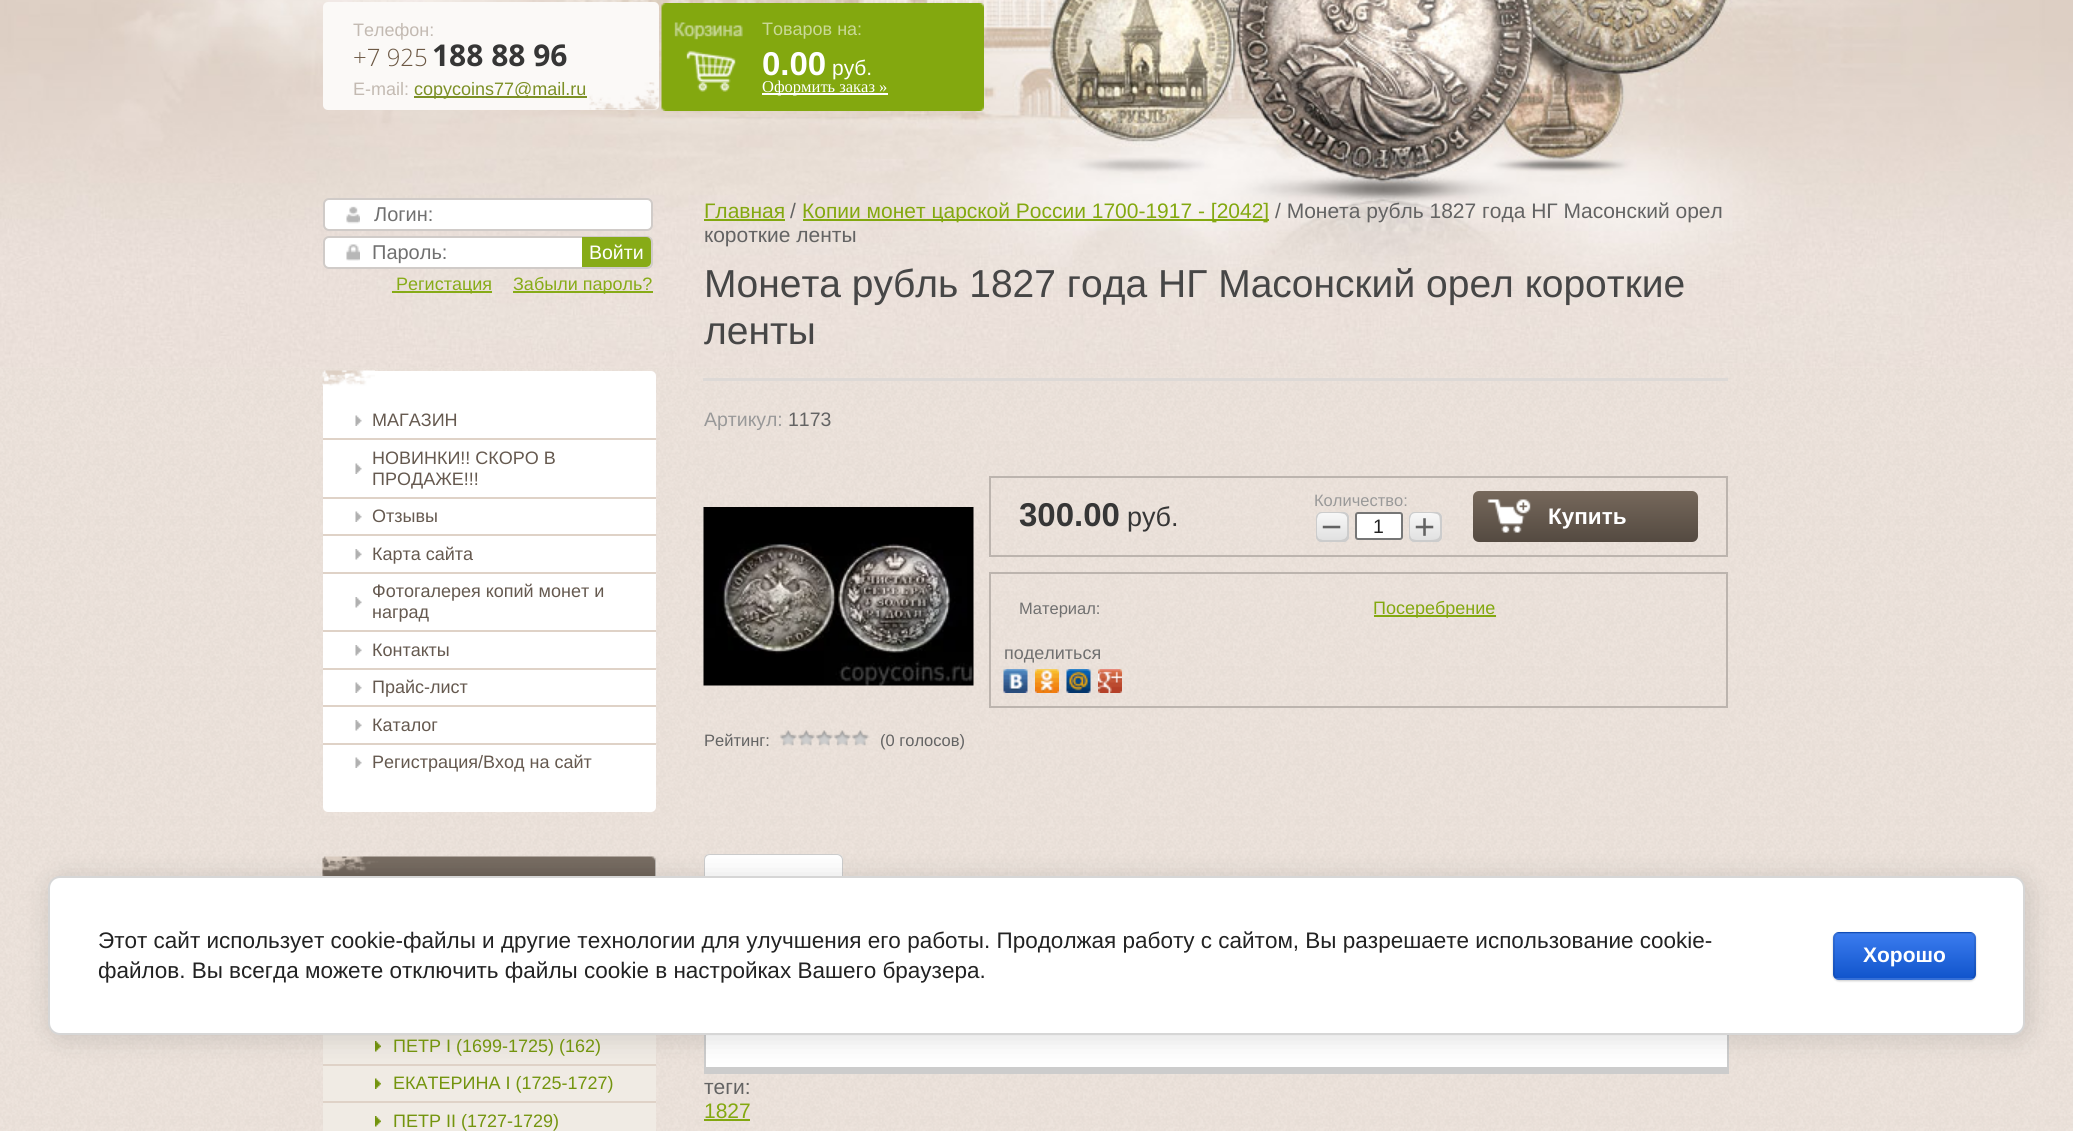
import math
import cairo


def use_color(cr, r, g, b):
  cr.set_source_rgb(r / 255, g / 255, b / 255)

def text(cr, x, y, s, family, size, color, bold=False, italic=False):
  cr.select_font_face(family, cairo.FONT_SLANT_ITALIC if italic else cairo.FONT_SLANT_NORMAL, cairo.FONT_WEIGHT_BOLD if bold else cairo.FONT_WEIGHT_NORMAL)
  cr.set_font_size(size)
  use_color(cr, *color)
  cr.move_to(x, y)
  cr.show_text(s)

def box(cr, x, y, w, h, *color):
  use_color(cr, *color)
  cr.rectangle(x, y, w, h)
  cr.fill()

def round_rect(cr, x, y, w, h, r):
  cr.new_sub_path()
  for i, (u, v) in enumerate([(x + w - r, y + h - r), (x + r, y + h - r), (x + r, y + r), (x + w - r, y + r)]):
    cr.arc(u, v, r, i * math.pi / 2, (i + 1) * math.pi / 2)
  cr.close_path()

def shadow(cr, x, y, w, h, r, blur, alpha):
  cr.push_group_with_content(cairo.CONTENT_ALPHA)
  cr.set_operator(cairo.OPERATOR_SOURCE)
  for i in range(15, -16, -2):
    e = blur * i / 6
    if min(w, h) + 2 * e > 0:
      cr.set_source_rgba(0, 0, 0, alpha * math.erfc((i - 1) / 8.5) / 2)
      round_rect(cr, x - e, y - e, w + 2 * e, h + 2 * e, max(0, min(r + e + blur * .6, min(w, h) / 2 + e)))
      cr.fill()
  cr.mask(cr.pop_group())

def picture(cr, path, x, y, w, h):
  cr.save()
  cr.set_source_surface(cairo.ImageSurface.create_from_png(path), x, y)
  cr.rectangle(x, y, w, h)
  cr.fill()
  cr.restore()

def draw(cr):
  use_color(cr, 255, 255, 255)
  cr.paint()
  picture(cr, "img_01.png", 0, 367, 2073, 764)
  picture(cr, "img_20.png", 0, 367, 2073, 1)
  picture(cr, "img_02.png", 0, 0, 2073, 368)
  use_color(cr, 251, 249, 247)
  round_rect(cr, 323, 2, 336, 108, 5)
  cr.fill()
  box(cr, 414, 96, 173, 2, 124, 144, 38)
  picture(cr, "img_03.png", 589, 82, 70, 28)
  picture(cr, "img_04.png", 661, 3, 323, 108)
  box(cr, 762, 93, 126, 2, 255, 255, 255)
  round_rect(cr, 324, 199, 328, 31, 5)
  cr.fill_preserve()
  use_color(cr, 208, 203, 200)
  cr.stroke()
  picture(cr, "img_05.png", 346, 206, 14, 18)
  use_color(cr, 255, 255, 255)
  round_rect(cr, 324, 237, 328, 31, 5)
  cr.fill_preserve()
  use_color(cr, 208, 203, 200)
  cr.stroke()
  picture(cr, "img_06.png", 346, 244, 14, 17)
  use_color(cr, 135, 171, 23)
  cr.new_path()
  cr.move_to(582, 237)
  cr.line_to(646, 237)
  cr.curve_to(649, 237, 651, 239, 651, 242)
  cr.line_to(651, 262)
  cr.curve_to(651, 265, 649, 267, 646, 267)
  cr.line_to(582, 267)
  cr.close_path()
  cr.fill()
  box(cr, 392, 291, 100, 2, 135, 171, 23)
  box(cr, 513, 291, 140, 2, 135, 171, 23)
  use_color(cr, 255, 255, 255)
  round_rect(cr, 323, 371, 333, 441, 5)
  cr.fill()
  picture(cr, "img_07.png", 322, 370, 53, 16)
  picture(cr, "img_08.png", 355, 415, 7, 11)
  picture(cr, "img_08.png", 355, 463, 7, 11)
  box(cr, 323, 438, 333, 2, 223, 210, 199)
  picture(cr, "img_08.png", 355, 511, 7, 11)
  box(cr, 323, 497, 333, 2, 223, 210, 199)
  picture(cr, "img_09.png", 355, 549, 7, 11)
  box(cr, 323, 534, 333, 2, 223, 210, 199)
  picture(cr, "img_09.png", 355, 597, 7, 11)
  box(cr, 323, 572, 333, 2, 223, 210, 199)
  picture(cr, "img_09.png", 355, 645, 7, 11)
  box(cr, 323, 630, 333, 2, 223, 210, 199)
  picture(cr, "img_08.png", 355, 682, 7, 11)
  box(cr, 323, 668, 333, 2, 223, 210, 199)
  picture(cr, "img_09.png", 355, 720, 7, 11)
  box(cr, 323, 705, 333, 2, 223, 210, 199)
  picture(cr, "img_08.png", 355, 757, 7, 11)
  box(cr, 323, 743, 333, 2, 223, 210, 199)
  use_color(cr, 255, 255, 255)
  round_rect(cr, 323, 857, 333, 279, 5)
  cr.fill()
  picture(cr, "img_10.png", 322, 856, 334, 20)
  box(cr, 323, 1035, 333, 96, 240, 235, 228)
  picture(cr, "img_11.png", 375, 1041, 6, 11)
  picture(cr, "img_12.png", 375, 1078, 6, 11)
  box(cr, 323, 1064, 333, 2, 223, 210, 199)
  picture(cr, "img_11.png", 375, 1116, 6, 11)
  box(cr, 323, 1101, 333, 2, 223, 210, 199)
  box(cr, 704, 219, 81, 2, 131, 168, 15)
  box(cr, 803, 219, 466, 2, 131, 168, 15)
  box(cr, 703, 378, 1025, 3, 221, 217, 214)
  cr.rectangle(990, 477, 737, 79)
  use_color(cr, 188, 180, 174)
  cr.stroke()
  gradient = cairo.LinearGradient(1332, 512, 1332, 542)
  gradient.add_color_stop_rgba(0, 0.973, 0.973, 0.973, 1)
  gradient.add_color_stop_rgba(1, 0.875, 0.875, 0.875, 1)
  cr.set_source(gradient)
  round_rect(cr, 1316, 512, 33, 30, 6)
  cr.fill()
  use_color(cr, 204, 204, 204)
  cr.new_path()
  cr.move_to(1317.5, 514.5)
  cr.curve_to(1316.5, 515.5, 1316, 516.5, 1316, 518)
  cr.line_to(1316, 536)
  cr.curve_to(1316, 539.5, 1318.5, 542, 1322, 542)
  cr.line_to(1343, 542)
  cr.curve_to(1346, 542, 1348, 540, 1349, 537.5)
  cr.curve_to(1348, 538.5, 1347, 539, 1346, 539.5)
  cr.curve_to(1341, 540.5, 1333.5, 540, 1328.5, 540)
  cr.curve_to(1326, 540, 1323, 540.5, 1321, 539.5)
  cr.line_to(1319, 539)
  cr.curve_to(1317.5, 537.5, 1317, 535.5, 1317, 534)
  cr.line_to(1317, 517)
  cr.close_path()
  cr.fill()
  cr.new_path()
  cr.move_to(1320, 513)
  cr.curve_to(1325, 513, 1342, 512, 1345, 514.5)
  cr.curve_to(1346, 515.5, 1346.5, 516, 1347, 517.5)
  cr.curve_to(1347, 519, 1347.5, 536, 1347, 538)
  cr.curve_to(1346.5, 539.5, 1346, 541, 1344.5, 542)
  cr.curve_to(1347, 541, 1349, 539, 1349, 536)
  cr.line_to(1349, 518)
  cr.curve_to(1349, 514.5, 1346.5, 512, 1343, 512)
  cr.line_to(1322, 512)
  cr.curve_to(1320.5, 512, 1319.5, 512.5, 1318.5, 513)
  cr.close_path()
  cr.fill()
  cr.new_path()
  cr.move_to(1317, 539.5)
  cr.curve_to(1318, 541, 1320, 542, 1322, 542)
  cr.line_to(1343, 542)
  cr.curve_to(1346.5, 542, 1349, 539.5, 1349, 536)
  cr.line_to(1349, 518)
  cr.curve_to(1349, 516, 1348, 514, 1346.5, 513)
  cr.line_to(1347, 516.5)
  cr.curve_to(1347.5, 519, 1347.5, 534, 1347, 535.5)
  cr.curve_to(1346.5, 537, 1346, 537.5, 1345, 538.5)
  cr.curve_to(1344, 539.5, 1342.5, 539.5, 1341, 540)
  cr.line_to(1323, 540)
  cr.curve_to(1321, 540, 1319, 540.5, 1317, 539.5)
  cr.close_path()
  cr.fill()
  cr.new_path()
  cr.move_to(1323, 513)
  cr.line_to(1340, 513)
  cr.curve_to(1344, 513, 1346.5, 513.5, 1348, 515)
  cr.curve_to(1347, 513, 1345, 512, 1343, 512)
  cr.line_to(1322, 512)
  cr.curve_to(1318.5, 512, 1316, 514.5, 1316, 518)
  cr.line_to(1316, 536)
  cr.curve_to(1316, 538, 1317, 539.5, 1318, 540.5)
  cr.curve_to(1317, 539, 1317, 537.5, 1317, 536)
  cr.line_to(1317, 519)
  cr.line_to(1318, 515.5)
  cr.curve_to(1319, 513.5, 1321, 513, 1323, 513)
  cr.close_path()
  cr.fill()
  use_color(cr, 255, 255, 255)
  round_rect(cr, 1356, 513, 46, 26, 2)
  cr.fill_preserve()
  use_color(cr, 118, 118, 118)
  cr.stroke()
  gradient = cairo.LinearGradient(1425, 512, 1425, 542)
  gradient.add_color_stop_rgba(0, 0.973, 0.973, 0.973, 1)
  gradient.add_color_stop_rgba(1, 0.875, 0.875, 0.875, 1)
  cr.set_source(gradient)
  round_rect(cr, 1409, 512, 33, 30, 6)
  cr.fill()
  use_color(cr, 204, 204, 204)
  cr.new_path()
  cr.move_to(1410.5, 514.5)
  cr.curve_to(1409.5, 515.5, 1409, 516.5, 1409, 518)
  cr.line_to(1409, 536)
  cr.curve_to(1409, 539.5, 1411.5, 542, 1415, 542)
  cr.line_to(1436, 542)
  cr.curve_to(1438.5, 542, 1441, 540.5, 1441.5, 538)
  cr.curve_to(1439, 541, 1428.5, 540, 1425, 540)
  cr.curve_to(1422, 540, 1416.5, 540.5, 1414, 539.5)
  cr.line_to(1412, 539)
  cr.curve_to(1410.5, 537.5, 1410, 535.5, 1410, 534)
  cr.line_to(1410, 517)
  cr.close_path()
  cr.fill()
  cr.new_path()
  cr.move_to(1413, 513)
  cr.curve_to(1418, 513, 1434, 512, 1438, 514.5)
  cr.curve_to(1439, 515.5, 1439.5, 516, 1439.5, 517.5)
  cr.curve_to(1440, 519, 1440.5, 536, 1440, 538)
  cr.curve_to(1439.5, 540, 1438.5, 541, 1437, 542)
  cr.curve_to(1440, 541.5, 1442, 539, 1442, 536)
  cr.line_to(1442, 518)
  cr.curve_to(1442, 514.5, 1439.5, 512, 1436, 512)
  cr.line_to(1415, 512)
  cr.curve_to(1413.5, 512, 1412.5, 512.5, 1411.5, 513)
  cr.close_path()
  cr.fill()
  cr.new_path()
  cr.move_to(1410, 539.5)
  cr.curve_to(1411, 541, 1413, 542, 1415, 542)
  cr.line_to(1436, 542)
  cr.curve_to(1439.5, 542, 1442, 539.5, 1442, 536)
  cr.line_to(1442, 518)
  cr.curve_to(1442, 516, 1441, 514, 1439, 513)
  cr.curve_to(1440.5, 514.5, 1440, 517.5, 1440, 521)
  cr.line_to(1440, 529)
  cr.curve_to(1440.5, 536, 1440.5, 540, 1430, 540)
  cr.line_to(1413, 540)
  cr.curve_to(1412, 540, 1411, 540, 1410, 539.5)
  cr.close_path()
  cr.fill()
  cr.new_path()
  cr.move_to(1416, 513)
  cr.line_to(1434, 513)
  cr.curve_to(1437, 513, 1439.5, 513.5, 1440.5, 514.5)
  cr.curve_to(1439.5, 513, 1438, 512, 1436, 512)
  cr.line_to(1415, 512)
  cr.curve_to(1411.5, 512, 1409, 514.5, 1409, 518)
  cr.line_to(1409, 536)
  cr.curve_to(1409, 538, 1410, 539.5, 1411, 540.5)
  cr.curve_to(1410, 539, 1410, 537.5, 1410, 536)
  cr.line_to(1410, 519)
  cr.line_to(1411, 515.5)
  cr.curve_to(1412, 513.5, 1414, 513, 1416, 513)
  cr.close_path()
  cr.fill()
  gradient = cairo.LinearGradient(1586, 491, 1586, 542)
  gradient.add_color_stop_rgba(0, 0.463, 0.408, 0.357, 1)
  gradient.add_color_stop_rgba(1, 0.329, 0.29, 0.255, 1)
  cr.set_source(gradient)
  round_rect(cr, 1473, 491, 225, 51, 6)
  cr.fill()
  picture(cr, "img_13.png", 1487, 499, 44, 34)
  cr.rectangle(990, 573, 737, 134)
  use_color(cr, 188, 180, 174)
  cr.stroke()
  box(cr, 1374, 615, 122, 2, 131, 168, 15)
  picture(cr, "img_14.png", 1003, 669, 25, 24)
  picture(cr, "img_15.png", 1035, 669, 24, 24)
  picture(cr, "img_16.png", 1066, 669, 25, 24)
  picture(cr, "img_17.png", 1098, 669, 24, 24)
  picture(cr, "img_18.png", 703, 507, 271, 179)
  picture(cr, "img_19.png", 780, 730, 90, 16)
  use_color(cr, 255, 255, 255)
  cr.new_path()
  cr.move_to(710, 854)
  cr.line_to(837, 854)
  cr.curve_to(840.5, 854, 843, 856.5, 843, 860)
  cr.line_to(843, 902)
  cr.line_to(704, 902)
  cr.line_to(704, 860)
  cr.curve_to(704, 856.5, 706.5, 854, 710, 854)
  cr.close_path()
  cr.fill()
  use_color(cr, 204, 204, 204)
  cr.set_fill_rule(cairo.FILL_RULE_EVEN_ODD)
  cr.new_path()
  cr.move_to(710, 854)
  cr.line_to(837, 854)
  cr.curve_to(840, 854, 843, 856, 843, 860)
  cr.line_to(843, 902)
  cr.line_to(704, 902)
  cr.line_to(704, 860)
  cr.curve_to(704, 856, 706, 854, 710, 854)
  cr.close_path()
  cr.move_to(710, 855)
  cr.line_to(837, 855)
  cr.curve_to(839, 855, 842, 857, 842, 860)
  cr.line_to(842, 902)
  cr.line_to(705, 902)
  cr.line_to(705, 860)
  cr.curve_to(705, 857, 707, 855, 710, 855)
  cr.close_path()
  cr.fill()
  box(cr, 706, 1035, 1021, 32, 255, 255, 255)
  box(cr, 1727, 1035, 2, 39, 204, 204, 204)
  box(cr, 704, 1067, 1024, 7, 204, 204, 204)
  box(cr, 704, 1035, 2, 39, 204, 204, 204)
  box(cr, 704, 1119, 46, 2, 131, 168, 15)
  use_color(cr, 0, 0, 0)
  shadow(cr, 51, 879, 1977, 159, 12, 13.5, 0.14)
  use_color(cr, 255, 255, 255)
  round_rect(cr, 49, 877, 1975, 157, 11)
  cr.fill_preserve()
  use_color(cr, 214, 214, 214)
  cr.stroke()
  use_color(cr, 0, 0, 0)
  shadow(cr, 1833, 933, 143, 48, 6, 1, 0.2)
  cr.save()
  cr.set_fill_rule(cairo.FILL_RULE_WINDING)
  round_rect(cr, 1833, 932, 143, 48, 6)
  cr.clip()
  gradient = cairo.LinearGradient(1904, 888, 1904, 933)
  gradient.add_color_stop_rgba(0, 0.231, 0.486, 0.937, 1)
  gradient.add_color_stop_rgba(1, 0.067, 0.333, 0.8, 1)
  cr.set_source(gradient)
  cr.rectangle(1833, 932, 143, 1)
  cr.fill()
  gradient = cairo.LinearGradient(1904, 933, 1904, 978)
  gradient.add_color_stop_rgba(0, 0.231, 0.486, 0.937, 1)
  gradient.add_color_stop_rgba(1, 0.067, 0.333, 0.8, 1)
  cr.set_source(gradient)
  cr.rectangle(1833, 933, 143, 45)
  cr.fill()
  gradient = cairo.LinearGradient(1904, 978, 1904, 1023)
  gradient.add_color_stop_rgba(0, 0.231, 0.486, 0.937, 1)
  gradient.add_color_stop_rgba(1, 0.067, 0.333, 0.8, 1)
  cr.set_source(gradient)
  cr.rectangle(1833, 978, 143, 2)
  cr.fill()
  cr.restore()
  round_rect(cr, 1834, 933, 141, 46, 5)
  cr.set_source_rgba(0, 0, 0, 0.1)
  cr.stroke()
  text(cr, 353, 36, "Телефон:", "Liberation Sans", 18, (195, 186, 178))
  text(cr, 353, 66, "+7 925", "Open Sans Light", 24, (108, 88, 68))
  text(cr, 432, 66, "188 88 96", "Open Sans", 30, (54, 54, 54), bold=True)
  text(cr, 353, 95, "E-mail:", "Liberation Sans", 18, (195, 186, 178))
  text(cr, 414, 95, "copycoins77@mail.ru", "Liberation Sans", 18, (124, 144, 38))
  text(cr, 762, 35, "Товаров на:", "Liberation Sans", 18, (202, 217, 151))
  text(cr, 762, 75, "0.00", "Liberation Sans", 33, (255, 255, 255), bold=True)
  text(cr, 832, 75, "руб.", "Liberation Sans", 21, (255, 255, 255))
  text(cr, 762, 92, "Оформить заказ »", "Liberation Serif", 16.5, (255, 255, 255))
  text(cr, 374, 221, "Логин:", "Liberation Sans", 20, (112, 112, 112))
  text(cr, 372, 259, "Пароль:", "Liberation Sans", 20, (112, 112, 112))
  text(cr, 589, 259, "Войти", "Liberation Sans", 19.5, (255, 255, 255))
  text(cr, 396, 290, "Регистация", "Liberation Sans", 18, (135, 171, 23))
  text(cr, 513, 290, "Забыли пароль?", "Liberation Sans", 18, (135, 171, 23))
  text(cr, 372, 426, "МАГАЗИН", "Liberation Sans", 18, (101, 89, 79))
  text(cr, 372, 464, "НОВИНКИ!! СКОРО В", "Liberation Sans", 18, (101, 89, 79))
  text(cr, 372, 485, "ПРОДАЖЕ!!!", "Liberation Sans", 18, (101, 89, 79))
  text(cr, 372, 522, "Отзывы", "Liberation Sans", 18, (101, 89, 79))
  text(cr, 372, 560, "Карта сайта", "Liberation Sans", 18, (101, 89, 79))
  text(cr, 372, 597, "Фотогалерея копий монет и", "Liberation Sans", 18, (101, 89, 79))
  text(cr, 372, 618, "наград", "Liberation Sans", 18, (101, 89, 79))
  text(cr, 372, 656, "Контакты", "Liberation Sans", 18, (101, 89, 79))
  text(cr, 372, 693, "Прайс-лист", "Liberation Sans", 18, (101, 89, 79))
  text(cr, 372, 731, "Каталог", "Liberation Sans", 18, (101, 89, 79))
  text(cr, 372, 768, "Регистрация/Вход на сайт", "Liberation Sans", 18, (101, 89, 79))
  text(cr, 393, 1052, "ПЕТР I (1699-1725) (162)", "Liberation Sans", 18, (115, 148, 13))
  text(cr, 393, 1089, "ЕКАТЕРИНА I (1725-1727)", "Liberation Sans", 18, (115, 148, 13))
  text(cr, 393, 1127, "ПЕТР II (1727-1729)", "Liberation Sans", 18, (115, 148, 13))
  text(cr, 704, 218, "Главная", "Liberation Sans", 21, (131, 168, 15))
  text(cr, 790, 218, "/", "Liberation Sans", 21, (99, 99, 99))
  text(cr, 802, 218, "Копии монет царской России 1700-1917 - [2042]", "Liberation Sans", 21, (131, 168, 15))
  text(cr, 1275, 218, "/ Монета рубль 1827 года НГ Масонский орел", "Liberation Sans", 21, (99, 99, 99))
  text(cr, 704, 242, "короткие ленты", "Liberation Sans", 21, (99, 99, 99))
  text(cr, 704, 297, "Монета рубль 1827 года НГ Масонский орел короткие", "Liberation Sans", 39, (70, 70, 70))
  text(cr, 704, 344, "ленты", "Liberation Sans", 39, (70, 70, 70))
  text(cr, 704, 426, "Артикул:", "Liberation Sans", 19.5, (153, 153, 153))
  text(cr, 788, 426, "1173", "Liberation Sans", 19.5, (99, 99, 99))
  text(cr, 1019, 526, "300.00", "Liberation Sans", 33, (54, 54, 54), bold=True)
  text(cr, 1127, 526, "руб.", "Liberation Sans", 27, (54, 54, 54))
  text(cr, 1314, 506, "Количество:", "Liberation Sans", 16.5, (153, 153, 153))
  text(cr, 1321, 539, "−", "Liberation Sans", 36, (99, 99, 99))
  text(cr, 1373, 533, "1", "Liberation Sans", 19.5, (34, 34, 34))
  text(cr, 1414, 539, "+", "Liberation Sans", 36, (99, 99, 99))
  text(cr, 1548, 524, "Купить", "Liberation Sans", 22.5, (255, 255, 255), bold=True)
  text(cr, 1019, 614, "Материал:", "Liberation Sans", 16.5, (112, 112, 112))
  text(cr, 1373, 614, "Посеребрение", "Liberation Sans", 18, (131, 168, 15))
  text(cr, 1004, 659, "поделиться", "Liberation Sans", 18, (112, 112, 112))
  text(cr, 704, 746, "Рейтинг:", "Liberation Sans", 16.5, (99, 99, 99))
  text(cr, 880, 746, "(0 голосов)", "Liberation Sans", 16.5, (99, 99, 99))
  text(cr, 704, 1094, "теги:", "Liberation Sans", 21, (99, 99, 99))
  text(cr, 704, 1118, "1827", "Liberation Sans", 21, (131, 168, 15))
  text(cr, 98, 948, "Этот сайт использует cookie-файлы и другие технологии для улучшения его работы. Продолжая работу с сайтом, Вы разрешаете использование cookie-", "Liberation Sans", 22.5, (34, 34, 34))
  text(cr, 98, 978, "файлов. Вы всегда можете отключить файлы cookie в настройках Вашего браузера.", "Liberation Sans", 22.5, (34, 34, 34))
  text(cr, 1863, 962, "Хорошо", "Liberation Sans", 21, (255, 255, 255), bold=True)


surface = cairo.ImageSurface(cairo.FORMAT_RGB24, 2073, 1131)
cr = cairo.Context(surface)
options = cairo.FontOptions()
options.set_hint_metrics(cairo.HINT_METRICS_OFF)
options.set_hint_style(cairo.HINT_STYLE_NONE)
cr.set_font_options(options)
cr.set_miter_limit(4)
draw(cr)
surface.write_to_png("out.png")
